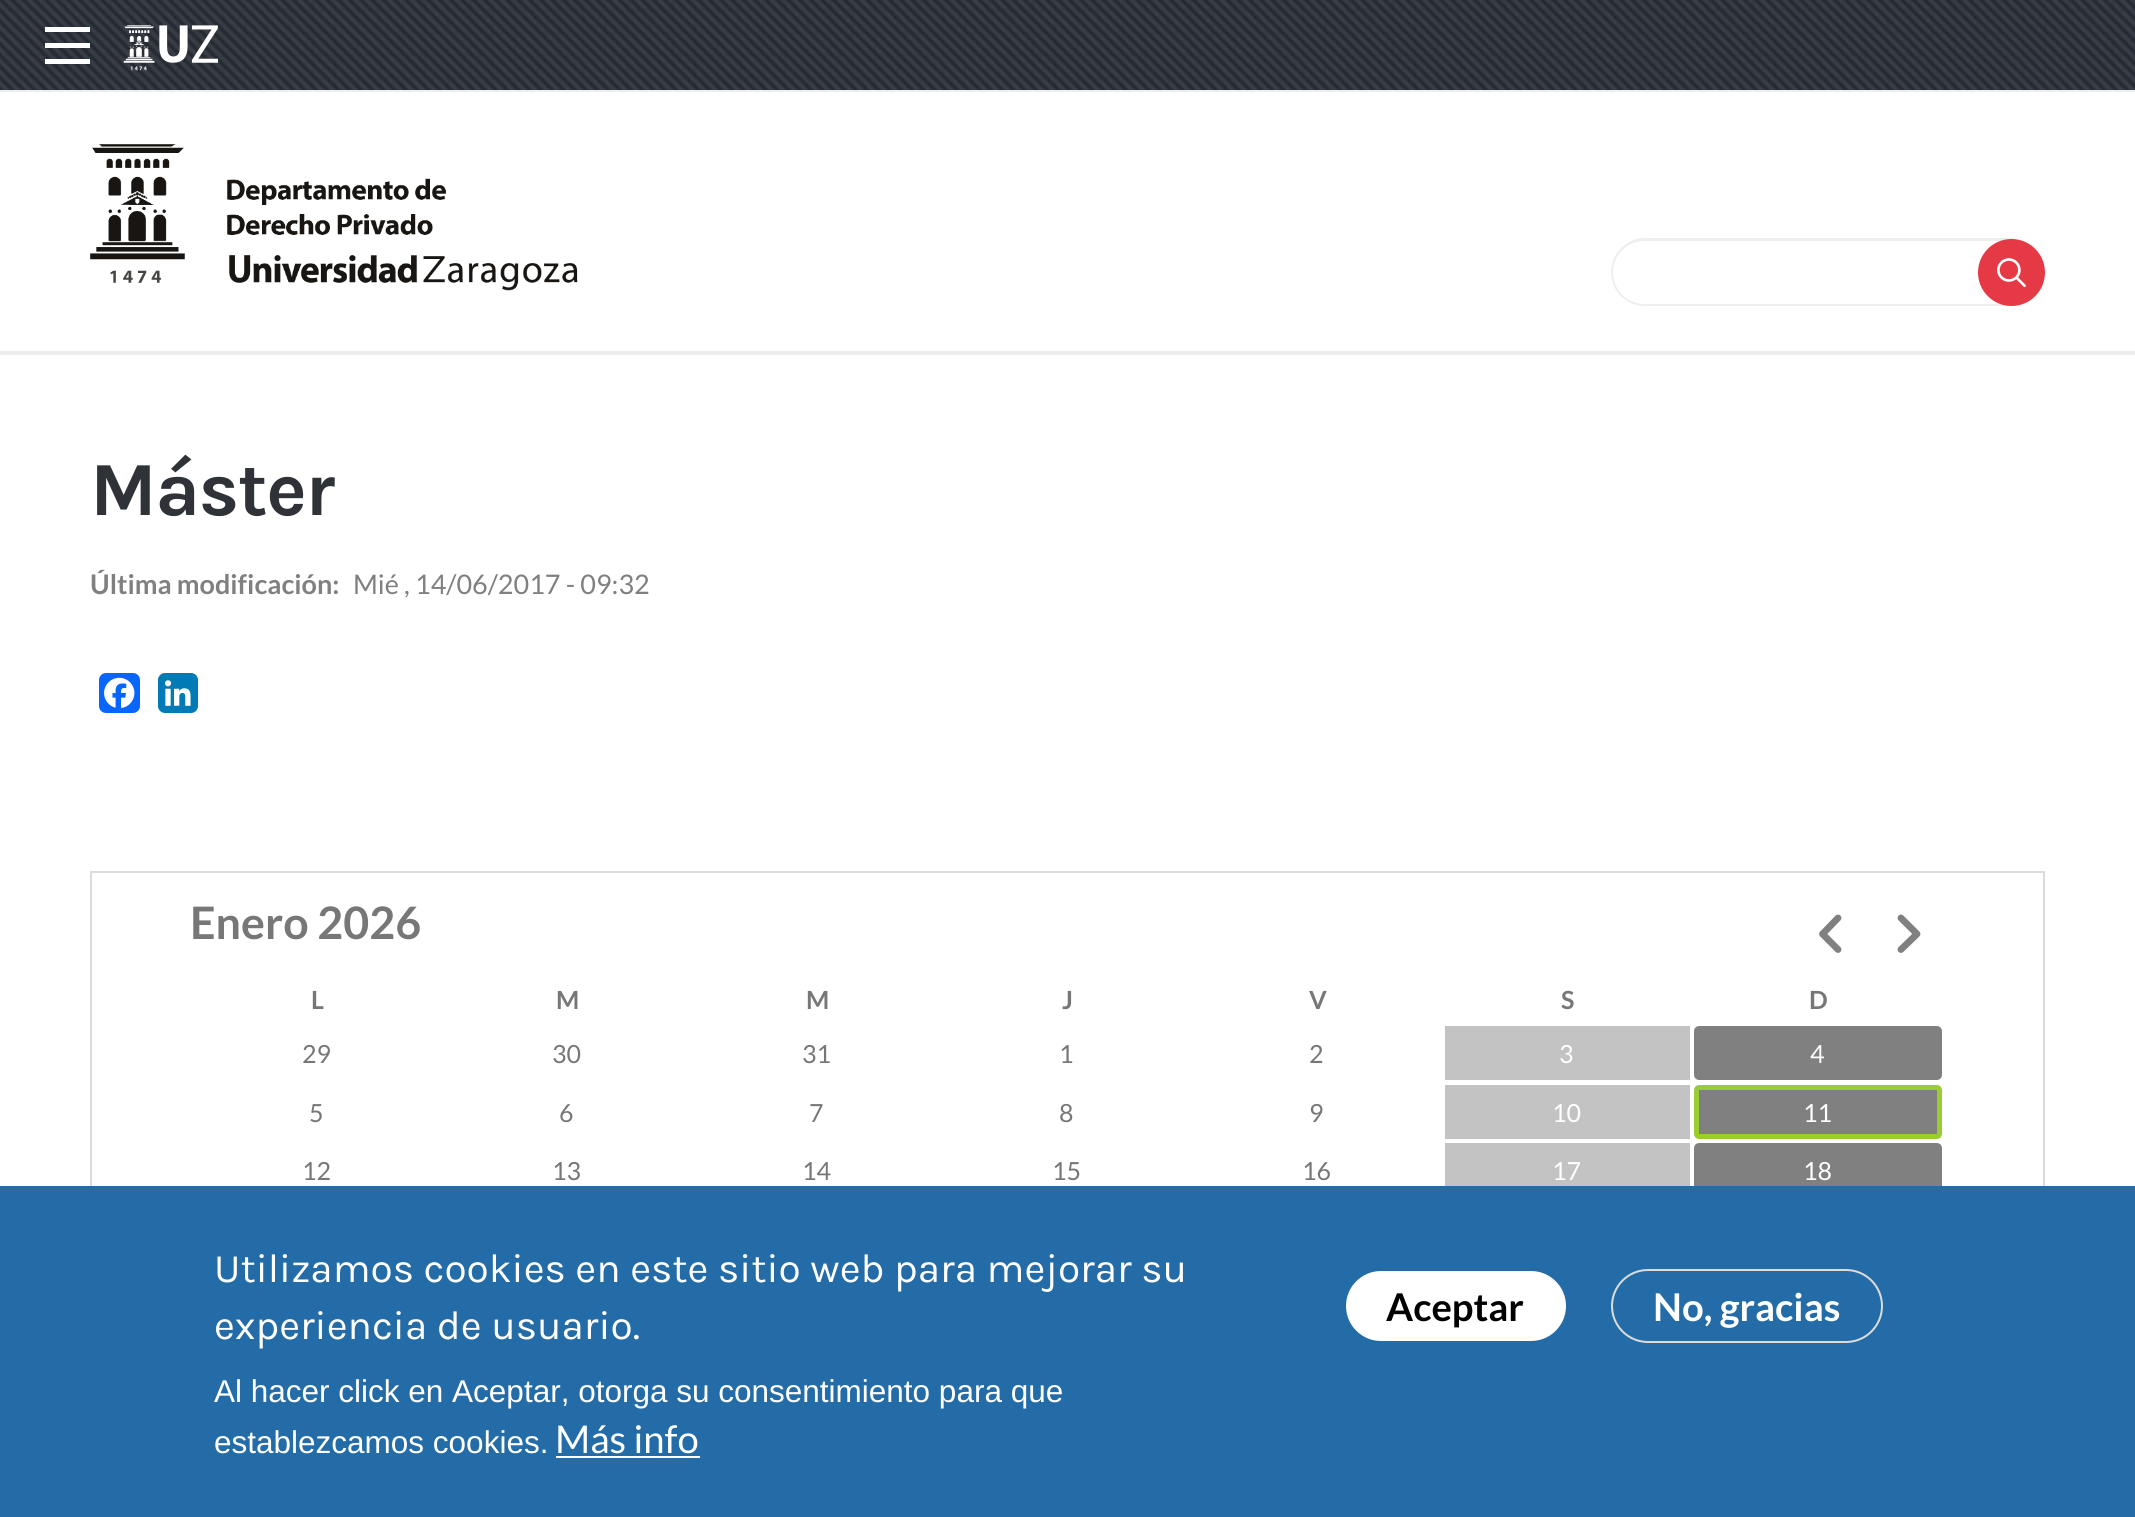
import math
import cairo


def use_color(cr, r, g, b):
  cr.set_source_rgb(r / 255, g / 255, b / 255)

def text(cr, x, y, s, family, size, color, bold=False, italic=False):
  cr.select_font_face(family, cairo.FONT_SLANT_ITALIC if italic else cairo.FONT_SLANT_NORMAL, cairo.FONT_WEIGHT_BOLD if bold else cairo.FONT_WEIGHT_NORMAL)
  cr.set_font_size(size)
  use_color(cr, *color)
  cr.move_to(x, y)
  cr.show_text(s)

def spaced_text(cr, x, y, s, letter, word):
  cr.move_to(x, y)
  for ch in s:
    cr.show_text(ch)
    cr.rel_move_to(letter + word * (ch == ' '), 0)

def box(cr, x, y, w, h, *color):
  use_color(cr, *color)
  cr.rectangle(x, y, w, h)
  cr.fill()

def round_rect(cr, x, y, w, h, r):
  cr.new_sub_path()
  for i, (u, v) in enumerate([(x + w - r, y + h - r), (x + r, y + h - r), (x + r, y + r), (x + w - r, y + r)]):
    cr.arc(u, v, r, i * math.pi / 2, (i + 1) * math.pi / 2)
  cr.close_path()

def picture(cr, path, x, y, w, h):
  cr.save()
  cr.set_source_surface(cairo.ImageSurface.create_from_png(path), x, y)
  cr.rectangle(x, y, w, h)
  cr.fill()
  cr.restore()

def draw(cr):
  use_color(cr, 255, 255, 255)
  cr.paint()
  box(cr, 0, 351, 2135, 2, 236, 236, 236)
  box(cr, 0, 0, 2135, 90, 36, 41, 51)
  picture(cr, "img_01.png", 0, 0, 2135, 93)
  box(cr, 0, 90, 2135, 2, 238, 238, 238)
  box(cr, 45, 43, 45, 5, 255, 255, 255)
  box(cr, 45, 27, 45, 5, 255, 255, 255)
  box(cr, 45, 59, 45, 5, 255, 255, 255)
  picture(cr, "img_02.png", 123, 25, 96, 46)
  picture(cr, "img_03.png", 90, 144, 488, 147)
  use_color(cr, 238, 238, 238)
  cr.set_fill_rule(cairo.FILL_RULE_EVEN_ODD)
  cr.new_path()
  cr.move_to(1645, 238)
  cr.line_to(2016, 238)
  cr.line_to(2016, 306)
  cr.line_to(1645, 306)
  cr.curve_to(1626, 306, 1611, 291, 1611, 272)
  cr.curve_to(1611, 254, 1626, 238, 1645, 238)
  cr.close_path()
  cr.move_to(1645, 241)
  cr.line_to(2016, 241)
  cr.line_to(2016, 304)
  cr.line_to(1645, 304)
  cr.curve_to(1627, 304, 1613, 290, 1613, 272)
  cr.curve_to(1613, 255, 1627, 241, 1645, 241)
  cr.close_path()
  cr.fill()
  use_color(cr, 230, 57, 70)
  cr.arc(2011.5, 272.5, 33.5, 0, 2 * math.pi)
  cr.fill()
  picture(cr, "img_04.png", 1997, 258, 29, 30)
  box(cr, 0, 353, 2135, 2, 238, 238, 238)
  use_color(cr, 8, 102, 255)
  round_rect(cr, 99, 673, 41, 40, 7)
  cr.fill()
  picture(cr, "img_05.png", 104, 677, 31, 31)
  use_color(cr, 0, 123, 181)
  round_rect(cr, 158, 673, 40, 40, 7)
  cr.fill()
  picture(cr, "img_06.png", 165, 680, 26, 26)
  cr.rectangle(91, 872, 1953, 470)
  use_color(cr, 219, 219, 219)
  cr.stroke()
  cr.new_path()
  cr.move_to(1838, 949.5)
  cr.line_to(1822.5, 934)
  cr.line_to(1838, 918)
  use_color(cr, 128, 128, 128)
  cr.set_line_width(6.8)
  cr.set_line_cap(cairo.LINE_CAP_ROUND)
  cr.set_line_join(cairo.LINE_JOIN_ROUND)
  cr.stroke()
  cr.new_path()
  cr.move_to(1901, 918)
  cr.line_to(1917, 934)
  cr.line_to(1901, 949.5)
  cr.stroke()
  box(cr, 1445, 1026, 245, 54, 195, 195, 195)
  use_color(cr, 128, 128, 128)
  round_rect(cr, 1696.5, 1028.5, 243, 49, 2.5)
  cr.fill_preserve()
  cr.set_line_width(5)
  cr.set_line_cap(cairo.LINE_CAP_BUTT)
  cr.set_line_join(cairo.LINE_JOIN_MITER)
  cr.stroke()
  box(cr, 1445, 1085, 245, 54, 195, 195, 195)
  use_color(cr, 128, 128, 128)
  round_rect(cr, 1696.5, 1087.5, 243, 49, 2.5)
  cr.fill_preserve()
  use_color(cr, 154, 205, 50)
  cr.stroke()
  box(cr, 1445, 1143, 245, 43, 195, 195, 195)
  use_color(cr, 128, 128, 128)
  round_rect(cr, 1696.5, 1145.5, 243, 49, 2.5)
  cr.fill_preserve()
  cr.stroke()
  box(cr, 0, 1186, 2135, 331, 35, 108, 167)
  box(cr, 556, 1456, 144, 2, 255, 255, 255)
  round_rect(cr, 1346, 1271, 220, 70, 35)
  cr.fill()
  round_rect(cr, 1612, 1270, 270, 72, 36)
  use_color(cr, 220, 220, 220)
  cr.set_line_width(2)
  cr.stroke()
  cr.select_font_face("Karla", cairo.FONT_SLANT_NORMAL, cairo.FONT_WEIGHT_BOLD)
  cr.set_font_size(76.5)
  use_color(cr, 47, 51, 55)
  spaced_text(cr, 90, 515, "Máster", -1.5, 0)
  text(cr, 90, 594, "Última modificación:", "Lato", 27, (128, 128, 128), bold=True)
  text(cr, 353, 594, "Mié , 14/06/2017 - 09:32", "Lato", 27, (128, 128, 128))
  text(cr, 190, 939, "Enero 2026", "Lato", 44.75, (119, 119, 119), bold=True)
  text(cr, 311, 1009, "L", "Lato", 25, (119, 119, 119), bold=True)
  text(cr, 556, 1009, "M", "Lato", 25, (119, 119, 119), bold=True)
  text(cr, 806, 1009, "M", "Lato", 25, (119, 119, 119), bold=True)
  text(cr, 1062, 1009, "J", "Lato", 25, (119, 119, 119), bold=True)
  text(cr, 1309, 1009, "V", "Lato", 25, (119, 119, 119), bold=True)
  text(cr, 1561, 1009, "S", "Lato", 25, (119, 119, 119), bold=True)
  text(cr, 1809, 1009, "D", "Lato", 25, (119, 119, 119), bold=True)
  text(cr, 302, 1063, "29", "Lato", 25, (119, 119, 119))
  text(cr, 552, 1063, "30", "Lato", 25, (119, 119, 119))
  text(cr, 802, 1063, "31", "Lato", 25, (119, 119, 119))
  text(cr, 1059, 1063, "1", "Lato", 25, (119, 119, 119))
  text(cr, 1309, 1063, "2", "Lato", 25, (119, 119, 119))
  text(cr, 1559, 1063, "3", "Lato", 25, (255, 255, 255))
  text(cr, 1810, 1063, "4", "Lato", 25, (255, 255, 255))
  text(cr, 309, 1122, "5", "Lato", 25, (119, 119, 119))
  text(cr, 559, 1122, "6", "Lato", 25, (119, 119, 119))
  text(cr, 809, 1122, "7", "Lato", 25, (119, 119, 119))
  text(cr, 1059, 1122, "8", "Lato", 25, (119, 119, 119))
  text(cr, 1309, 1122, "9", "Lato", 25, (119, 119, 119))
  text(cr, 1552, 1122, "10", "Lato", 25, (255, 255, 255))
  text(cr, 1803, 1122, "11", "Lato", 25, (255, 255, 255))
  text(cr, 302, 1180, "12", "Lato", 25, (119, 119, 119))
  text(cr, 552, 1180, "13", "Lato", 25, (119, 119, 119))
  text(cr, 802, 1180, "14", "Lato", 25, (119, 119, 119))
  text(cr, 1052, 1180, "15", "Lato", 25, (119, 119, 119))
  text(cr, 1302, 1180, "16", "Lato", 25, (119, 119, 119))
  text(cr, 1552, 1180, "17", "Lato", 25, (255, 255, 255))
  text(cr, 1803, 1180, "18", "Lato", 25, (255, 255, 255))
  text(cr, 214, 1282, "Utilizamos cookies en este sitio web para mejorar su", "Karla", 40.5, (255, 255, 255))
  text(cr, 214, 1339, "experiencia de usuario.", "Karla", 40.5, (255, 255, 255))
  text(cr, 214, 1402, "Al hacer click en Aceptar, otorga su consentimiento para que", "Liberation Sans", 31.5, (255, 255, 255))
  text(cr, 214, 1453, "establezcamos cookies.", "Liberation Sans", 31.5, (255, 255, 255))
  text(cr, 555, 1453, "Más info", "Lato", 38.25, (255, 255, 255))
  text(cr, 1386, 1321, "Aceptar", "Lato", 38.25, (0, 0, 0), bold=True)
  text(cr, 1653, 1321, "No, gracias", "Lato", 38.25, (255, 255, 255), bold=True)


surface = cairo.ImageSurface(cairo.FORMAT_RGB24, 2135, 1517)
cr = cairo.Context(surface)
options = cairo.FontOptions()
options.set_hint_metrics(cairo.HINT_METRICS_OFF)
options.set_hint_style(cairo.HINT_STYLE_NONE)
cr.set_font_options(options)
cr.set_miter_limit(4)
draw(cr)
surface.write_to_png("out.png")
